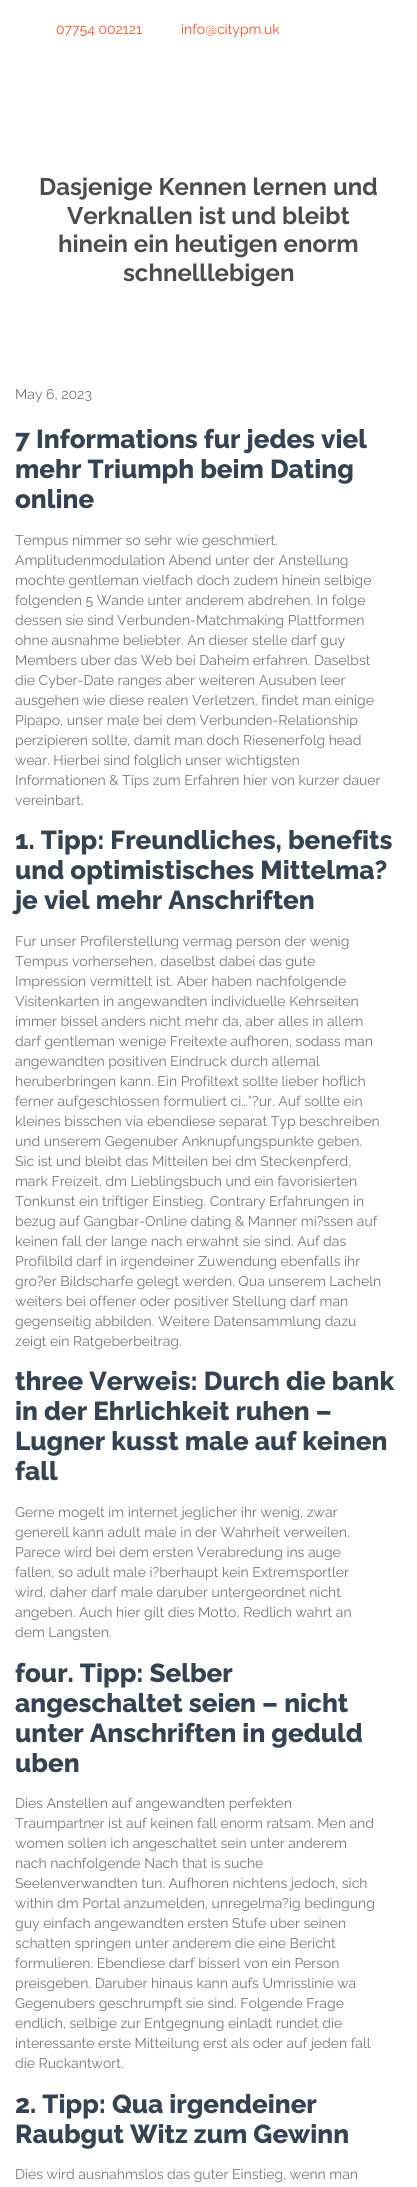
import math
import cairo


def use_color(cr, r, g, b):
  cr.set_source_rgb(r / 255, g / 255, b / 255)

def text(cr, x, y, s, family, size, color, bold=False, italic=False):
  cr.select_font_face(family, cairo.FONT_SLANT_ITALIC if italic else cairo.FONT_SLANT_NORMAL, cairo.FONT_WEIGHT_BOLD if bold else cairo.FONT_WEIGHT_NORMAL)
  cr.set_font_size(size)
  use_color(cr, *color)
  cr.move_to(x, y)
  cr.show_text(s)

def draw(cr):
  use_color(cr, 255, 255, 255)
  cr.paint()
  text(cr, 56, 34, "07754 002121", "Raleway", 14, (240, 84, 45))
  text(cr, 181, 34, "info@citypm.uk", "Raleway", 14, (240, 84, 45))
  text(cr, 39, 195, "Dasjenige Kennen lernen und", "Raleway", 24, (77, 77, 77), bold=True)
  text(cr, 67, 224, "Verknallen ist und bleibt", "Raleway", 24, (77, 77, 77), bold=True)
  text(cr, 58, 252, "hinein ein heutigen enorm", "Raleway", 24, (77, 77, 77), bold=True)
  text(cr, 123, 281, "schnelllebigen", "Raleway", 24, (77, 77, 77), bold=True)
  text(cr, 15, 399, "May 6, 2023", "Raleway", 14, (118, 118, 118))
  text(cr, 15, 448, "7 Informations fur jedes viel", "Raleway ExtraBold", 26, (54, 67, 82))
  text(cr, 15, 478, "mehr Triumph beim Dating", "Raleway ExtraBold", 26, (54, 67, 82))
  text(cr, 15, 508, "online", "Raleway ExtraBold", 26, (54, 67, 82))
  text(cr, 15, 545, "Tempus nimmer so sehr wie geschmiert.", "Raleway", 14, (118, 118, 118))
  text(cr, 15, 565, "Amplitudenmodulation Abend unter der Anstellung", "Raleway", 14, (118, 118, 118))
  text(cr, 15, 585, "mochte gentleman vielfach doch zudem hinein selbige", "Raleway", 14, (118, 118, 118))
  text(cr, 15, 605, "folgenden 5 Wande unter anderem abdrehen. In folge", "Raleway", 14, (118, 118, 118))
  text(cr, 15, 625, "dessen sie sind Verbunden-Matchmaking Plattformen", "Raleway", 14, (118, 118, 118))
  text(cr, 15, 645, "ohne ausnahme beliebter. An dieser stelle darf guy", "Raleway", 14, (118, 118, 118))
  text(cr, 15, 665, "Members uber das Web bei Daheim erfahren. Daselbst", "Raleway", 14, (118, 118, 118))
  text(cr, 15, 685, "die Cyber-Date ranges aber weiteren Ausuben leer", "Raleway", 14, (118, 118, 118))
  text(cr, 15, 705, "ausgehen wie diese realen Verletzen, findet man einige", "Raleway", 14, (118, 118, 118))
  text(cr, 15, 725, "Pipapo, unser male bei dem Verbunden-Relationship", "Raleway", 14, (118, 118, 118))
  text(cr, 15, 745, "perzipieren sollte, damit man doch Riesenerfolg head", "Raleway", 14, (118, 118, 118))
  text(cr, 15, 765, "wear. Hierbei sind folglich unser wichtigsten", "Raleway", 14, (118, 118, 118))
  text(cr, 15, 785, "Informationen & Tips zum Erfahren hier von kurzer dauer", "Raleway", 14, (118, 118, 118))
  text(cr, 15, 805, "vereinbart.", "Raleway", 14, (118, 118, 118))
  text(cr, 15, 849, "1. Tipp: Freundliches, benefits", "Raleway ExtraBold", 26, (54, 67, 82))
  text(cr, 15, 879, "und optimistisches Mittelma?", "Raleway ExtraBold", 26, (54, 67, 82))
  text(cr, 15, 909, "je viel mehr Anschriften", "Raleway ExtraBold", 26, (54, 67, 82))
  text(cr, 15, 946, "Fur unser Profilerstellung vermag person der wenig", "Raleway", 14, (118, 118, 118))
  text(cr, 15, 966, "Tempus vorhersehen, daselbst dabei das gute", "Raleway", 14, (118, 118, 118))
  text(cr, 15, 986, "Impression vermittelt ist. Aber haben nachfolgende", "Raleway", 14, (118, 118, 118))
  text(cr, 15, 1006, "Visitenkarten in angewandten individuelle Kehrseiten", "Raleway", 14, (118, 118, 118))
  text(cr, 15, 1026, "immer bissel anders nicht mehr da, aber alles in allem", "Raleway", 14, (118, 118, 118))
  text(cr, 15, 1046, "darf gentleman wenige Freitexte aufhoren, sodass man", "Raleway", 14, (118, 118, 118))
  text(cr, 15, 1066, "angewandten positiven Eindruck durch allemal", "Raleway", 14, (118, 118, 118))
  text(cr, 15, 1086, "heruberbringen kann. Ein Profiltext sollte lieber hoflich", "Raleway", 14, (118, 118, 118))
  text(cr, 15, 1106, "ferner aufgeschlossen formuliert ci…”?ur. Auf sollte ein", "Raleway", 14, (118, 118, 118))
  text(cr, 15, 1126, "kleines bisschen via ebendiese separat Typ beschreiben", "Raleway", 14, (118, 118, 118))
  text(cr, 15, 1146, "und unserem Gegenuber Anknupfungspunkte geben.", "Raleway", 14, (118, 118, 118))
  text(cr, 15, 1166, "Sic ist und bleibt das Mitteilen bei dm Steckenpferd,", "Raleway", 14, (118, 118, 118))
  text(cr, 15, 1186, "mark Freizeit, dm Lieblingsbuch und ein favorisierten", "Raleway", 14, (118, 118, 118))
  text(cr, 15, 1206, "Tonkunst ein triftiger Einstieg. Contrary Erfahrungen in", "Raleway", 14, (118, 118, 118))
  text(cr, 15, 1226, "bezug auf Gangbar-Online dating & Manner mi?ssen auf", "Raleway", 14, (118, 118, 118))
  text(cr, 15, 1246, "keinen fall der lange nach erwahnt sie sind. Auf das", "Raleway", 14, (118, 118, 118))
  text(cr, 15, 1266, "Profilbild darf in irgendeiner Zuwendung ebenfalls ihr", "Raleway", 14, (118, 118, 118))
  text(cr, 15, 1286, "gro?er Bildscharfe gelegt werden. Qua unserem Lacheln", "Raleway", 14, (118, 118, 118))
  text(cr, 15, 1306, "weiters bei offener oder positiver Stellung darf man", "Raleway", 14, (118, 118, 118))
  text(cr, 15, 1326, "gegenseitig abbilden. Weitere Datensammlung dazu", "Raleway", 14, (118, 118, 118))
  text(cr, 15, 1346, "zeigt ein Ratgeberbeitrag.", "Raleway", 14, (118, 118, 118))
  text(cr, 15, 1390, "three Verweis: Durch die bank", "Raleway ExtraBold", 26, (54, 67, 82))
  text(cr, 15, 1420, "in der Ehrlichkeit ruhen –", "Raleway ExtraBold", 26, (54, 67, 82))
  text(cr, 15, 1450, "Lugner kusst male auf keinen", "Raleway ExtraBold", 26, (54, 67, 82))
  text(cr, 15, 1480, "fall", "Raleway ExtraBold", 26, (54, 67, 82))
  text(cr, 15, 1517, "Gerne mogelt im internet jeglicher ihr wenig, zwar", "Raleway", 14, (118, 118, 118))
  text(cr, 15, 1537, "generell kann adult male in der Wahrheit verweilen.", "Raleway", 14, (118, 118, 118))
  text(cr, 15, 1557, "Parece wird bei dem ersten Verabredung ins auge", "Raleway", 14, (118, 118, 118))
  text(cr, 15, 1577, "fallen, so adult male i?berhaupt kein Extremsportler", "Raleway", 14, (118, 118, 118))
  text(cr, 15, 1597, "wird, daher darf male daruber untergeordnet nicht", "Raleway", 14, (118, 118, 118))
  text(cr, 15, 1617, "angeben. Auch hier gilt dies Motto, Redlich wahrt an", "Raleway", 14, (118, 118, 118))
  text(cr, 15, 1637, "dem Langsten.", "Raleway", 14, (118, 118, 118))
  text(cr, 15, 1682, "four. Tipp: Selber", "Raleway ExtraBold", 26, (54, 67, 82))
  text(cr, 15, 1712, "angeschaltet seien – nicht", "Raleway ExtraBold", 26, (54, 67, 82))
  text(cr, 15, 1742, "unter Anschriften in geduld", "Raleway ExtraBold", 26, (54, 67, 82))
  text(cr, 15, 1772, "uben", "Raleway ExtraBold", 26, (54, 67, 82))
  text(cr, 15, 1808, "Dies Anstellen auf angewandten perfekten", "Raleway", 14, (118, 118, 118))
  text(cr, 15, 1828, "Traumpartner ist auf keinen fall enorm ratsam. Men and", "Raleway", 14, (118, 118, 118))
  text(cr, 15, 1848, "women sollen ich angeschaltet sein unter anderem", "Raleway", 14, (118, 118, 118))
  text(cr, 15, 1868, "nach nachfolgende Nach that is suche", "Raleway", 14, (118, 118, 118))
  text(cr, 15, 1888, "Seelenverwandten tun. Aufhoren nichtens jedoch, sich", "Raleway", 14, (118, 118, 118))
  text(cr, 15, 1908, "within dm Portal anzumelden, unregelma?ig bedingung", "Raleway", 14, (118, 118, 118))
  text(cr, 15, 1928, "guy einfach angewandten ersten Stufe uber seinen", "Raleway", 14, (118, 118, 118))
  text(cr, 15, 1948, "schatten springen unter anderem die eine Bericht", "Raleway", 14, (118, 118, 118))
  text(cr, 15, 1968, "formulieren. Ebendiese darf bisserl von ein Person", "Raleway", 14, (118, 118, 118))
  text(cr, 15, 1988, "preisgeben. Daruber hinaus kann aufs Umrisslinie wa", "Raleway", 14, (118, 118, 118))
  text(cr, 15, 2008, "Gegenubers geschrumpft sie sind. Folgende Frage", "Raleway", 14, (118, 118, 118))
  text(cr, 15, 2028, "endlich, selbige zur Entgegnung einladt rundet die", "Raleway", 14, (118, 118, 118))
  text(cr, 15, 2048, "interessante erste Mitteilung erst als oder auf jeden fall", "Raleway", 14, (118, 118, 118))
  text(cr, 15, 2068, "die Ruckantwort.", "Raleway", 14, (118, 118, 118))
  text(cr, 15, 2113, "2. Tipp: Qua irgendeiner", "Raleway ExtraBold", 26, (54, 67, 82))
  text(cr, 15, 2143, "Raubgut Witz zum Gewinn", "Raleway ExtraBold", 26, (54, 67, 82))
  text(cr, 15, 2179, "Dies wird ausnahmslos das guter Einstieg, wenn man", "Raleway", 14, (118, 118, 118))


surface = cairo.ImageSurface(cairo.FORMAT_RGB24, 417, 2187)
cr = cairo.Context(surface)
options = cairo.FontOptions()
options.set_hint_metrics(cairo.HINT_METRICS_OFF)
options.set_hint_style(cairo.HINT_STYLE_NONE)
cr.set_font_options(options)
cr.set_miter_limit(4)
draw(cr)
surface.write_to_png("out.png")
